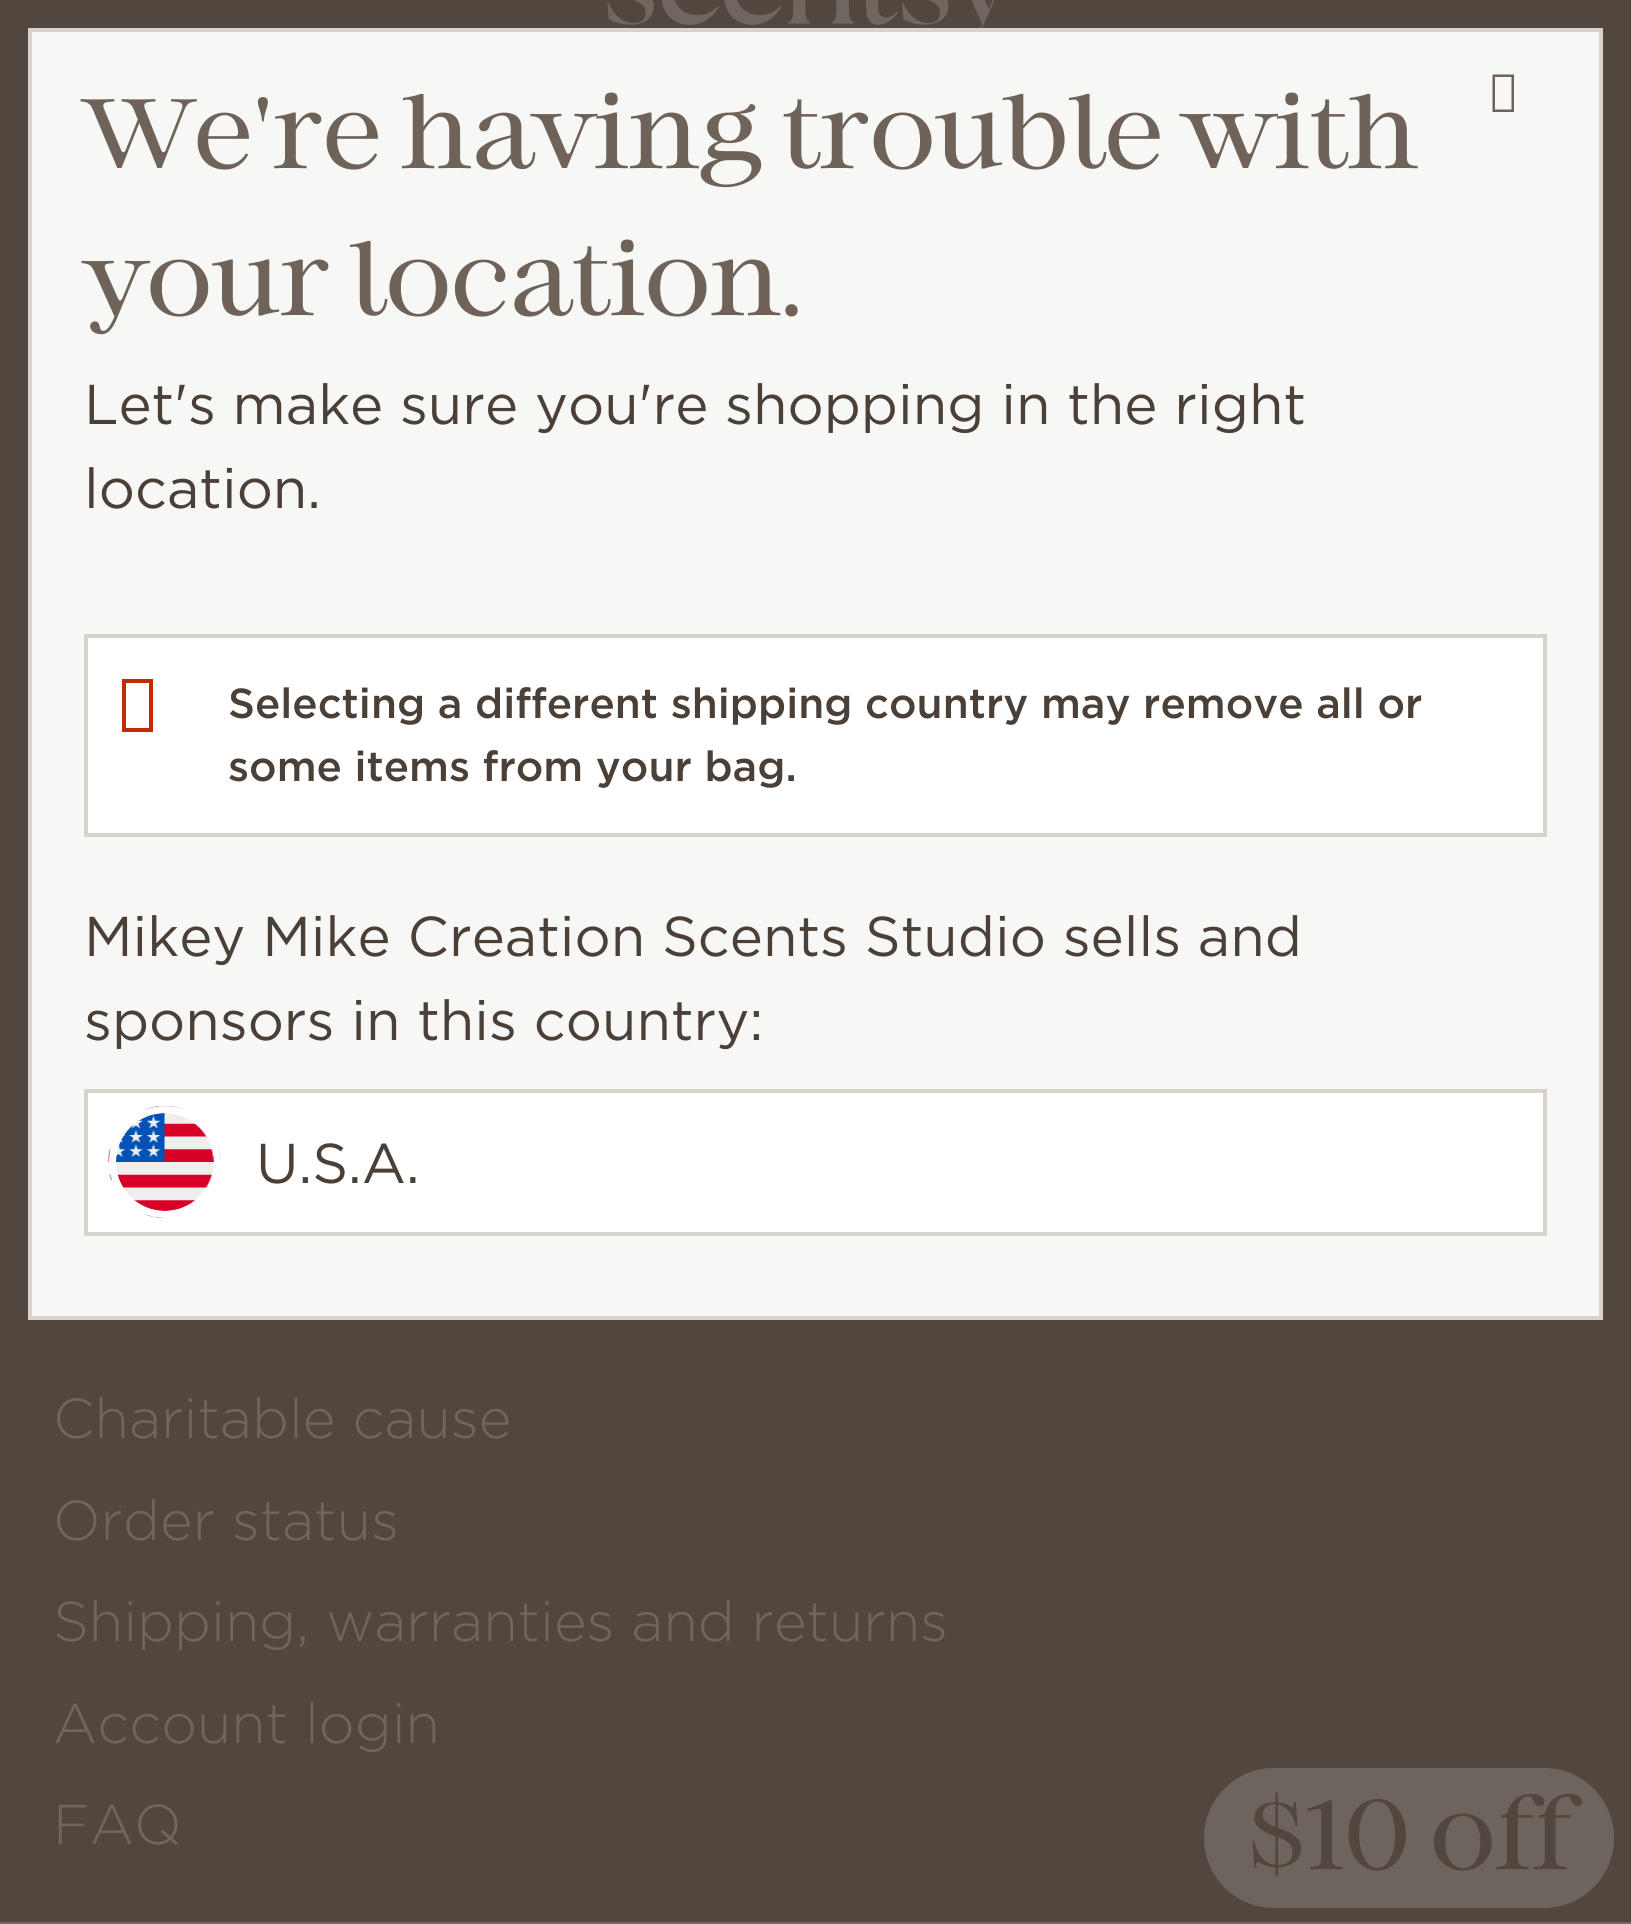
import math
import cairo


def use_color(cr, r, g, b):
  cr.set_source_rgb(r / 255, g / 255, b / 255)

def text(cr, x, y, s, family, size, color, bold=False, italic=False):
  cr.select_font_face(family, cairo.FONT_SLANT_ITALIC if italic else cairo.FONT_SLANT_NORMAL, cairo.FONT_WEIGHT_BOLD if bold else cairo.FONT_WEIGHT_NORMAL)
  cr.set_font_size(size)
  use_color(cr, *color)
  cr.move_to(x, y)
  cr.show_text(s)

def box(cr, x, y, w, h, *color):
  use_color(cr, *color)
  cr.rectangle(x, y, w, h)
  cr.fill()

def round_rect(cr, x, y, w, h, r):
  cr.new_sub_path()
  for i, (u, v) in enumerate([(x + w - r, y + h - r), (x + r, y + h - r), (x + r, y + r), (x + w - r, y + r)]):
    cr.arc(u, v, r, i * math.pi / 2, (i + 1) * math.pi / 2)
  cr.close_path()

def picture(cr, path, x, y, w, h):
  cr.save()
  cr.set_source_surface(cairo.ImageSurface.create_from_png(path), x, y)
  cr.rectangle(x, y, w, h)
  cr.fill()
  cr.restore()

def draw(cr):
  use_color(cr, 81, 71, 62)
  cr.paint()
  use_color(cr, 247, 247, 245)
  cr.rectangle(30, 30, 1571, 1288)
  cr.fill_preserve()
  use_color(cr, 215, 210, 203)
  cr.set_line_width(4)
  cr.stroke()
  use_color(cr, 110, 98, 89)
  cr.new_path()
  cr.move_to(1492.5, 112)
  cr.line_to(1492.5, 74.5)
  cr.line_to(1514, 74.5)
  cr.line_to(1514, 112)
  cr.close_path()
  cr.move_to(1495, 109.5)
  cr.line_to(1511.5, 109.5)
  cr.line_to(1511.5, 77)
  cr.line_to(1495, 77)
  cr.close_path()
  cr.fill()
  use_color(cr, 255, 255, 255)
  cr.rectangle(86, 636, 1459, 199)
  cr.fill_preserve()
  use_color(cr, 215, 210, 203)
  cr.stroke()
  use_color(cr, 193, 45, 0)
  cr.new_path()
  cr.move_to(122, 732)
  cr.line_to(122, 679)
  cr.line_to(153, 679)
  cr.line_to(153, 732)
  cr.close_path()
  cr.move_to(126, 728)
  cr.line_to(149, 728)
  cr.line_to(149, 683)
  cr.line_to(126, 683)
  cr.close_path()
  cr.fill()
  use_color(cr, 255, 255, 255)
  cr.rectangle(86, 1091, 1459, 143)
  cr.fill_preserve()
  use_color(cr, 215, 210, 203)
  cr.stroke()
  picture(cr, "img_01.png", 108, 1106, 113, 112)
  cr.arc(165, 1162, 52.5, 0, 2 * math.pi)
  use_color(cr, 255, 255, 255)
  cr.set_line_width(7)
  cr.stroke()
  picture(cr, "img_02.png", 607, 0, 388, 28)
  box(cr, 0, 1922, 1631, 2, 110, 102, 95)
  use_color(cr, 109, 101, 93)
  round_rect(cr, 1204, 1768, 410, 140, 70)
  cr.fill()
  text(cr, 84, 168, "We're having trouble with", "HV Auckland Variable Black", 98, (110, 98, 89))
  text(cr, 84, 315, "your location.", "HV Auckland Variable Black", 98, (110, 98, 89))
  text(cr, 84, 424, "Let's make sure you're shopping in the right", "Gotham", 56, (74, 64, 55))
  text(cr, 84, 508, "location.", "Gotham", 56, (74, 64, 55))
  text(cr, 228, 718, "Selecting a different shipping country may remove all or", "Gotham Medium", 42, (74, 64, 55))
  text(cr, 228, 781, "some items from your bag.", "Gotham Medium", 42, (74, 64, 55))
  text(cr, 84, 956, "Mikey Mike Creation Scents Studio sells and", "Gotham", 56, (74, 64, 55))
  text(cr, 84, 1040, "sponsors in this country:", "Gotham", 56, (74, 64, 55))
  text(cr, 256, 1183, "U.S.A.", "Gotham", 56, (74, 64, 55))
  text(cr, 53, 1438, "Charitable cause", "Gotham Light", 56, (110, 102, 95))
  text(cr, 53, 1540, "Order status", "Gotham Light", 56, (110, 102, 95))
  text(cr, 53, 1641, "Shipping, warranties and returns", "Gotham Light", 56, (110, 102, 95))
  text(cr, 53, 1743, "Account login", "Gotham Light", 56, (110, 102, 95))
  text(cr, 53, 1844, "FAQ", "Gotham Light", 56, (110, 102, 95))
  text(cr, 1247, 1869, "$10 off", "HV Auckland Variable Black", 98, (81, 71, 62))


surface = cairo.ImageSurface(cairo.FORMAT_RGB24, 1631, 1924)
cr = cairo.Context(surface)
options = cairo.FontOptions()
options.set_hint_metrics(cairo.HINT_METRICS_OFF)
options.set_hint_style(cairo.HINT_STYLE_NONE)
cr.set_font_options(options)
cr.set_miter_limit(4)
draw(cr)
surface.write_to_png("out.png")
